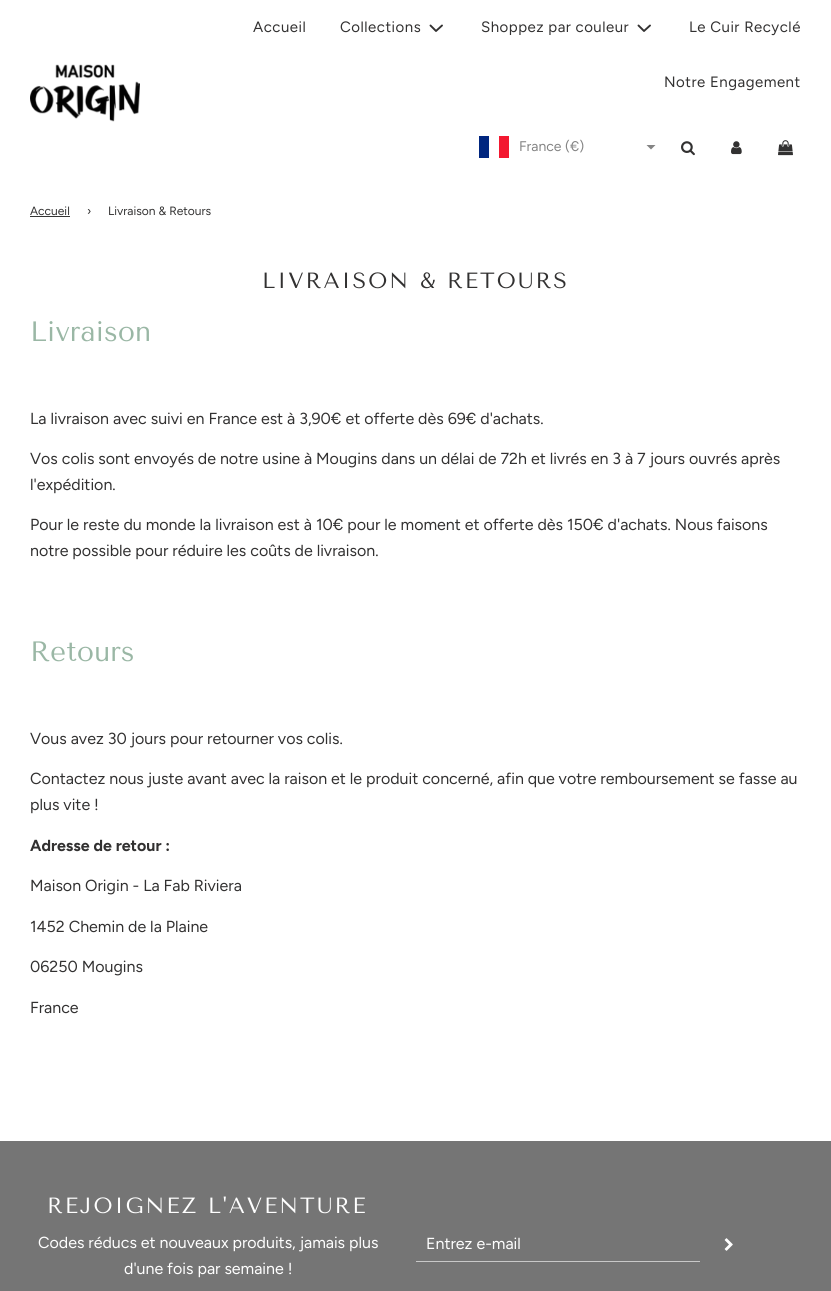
import math
import cairo


def use_color(cr, r, g, b):
  cr.set_source_rgb(r / 255, g / 255, b / 255)

def text(cr, x, y, s, family, size, color, bold=False, italic=False):
  cr.select_font_face(family, cairo.FONT_SLANT_ITALIC if italic else cairo.FONT_SLANT_NORMAL, cairo.FONT_WEIGHT_BOLD if bold else cairo.FONT_WEIGHT_NORMAL)
  cr.set_font_size(size)
  use_color(cr, *color)
  cr.move_to(x, y)
  cr.show_text(s)

def spaced_text(cr, x, y, s, letter, word):
  cr.move_to(x, y)
  for ch in s:
    cr.show_text(ch)
    cr.rel_move_to(letter + word * (ch == ' '), 0)

def box(cr, x, y, w, h, *color):
  use_color(cr, *color)
  cr.rectangle(x, y, w, h)
  cr.fill()

def picture(cr, path, x, y, w, h):
  cr.save()
  cr.set_source_surface(cairo.ImageSurface.create_from_png(path), x, y)
  cr.rectangle(x, y, w, h)
  cr.fill()
  cr.restore()

def draw(cr):
  use_color(cr, 255, 255, 255)
  cr.paint()
  picture(cr, "img_01.png", 30, 64, 110, 58)
  cr.new_path()
  cr.move_to(430.5, 25.5)
  cr.line_to(436, 31)
  cr.line_to(442, 25.5)
  use_color(cr, 50, 49, 49)
  cr.set_line_width(1.9)
  cr.set_line_cap(cairo.LINE_CAP_ROUND)
  cr.set_line_join(cairo.LINE_JOIN_ROUND)
  cr.stroke()
  cr.new_path()
  cr.move_to(638.5, 25.5)
  cr.line_to(644, 31)
  cr.line_to(650, 25.5)
  cr.stroke()
  box(cr, 479, 136, 10, 22, 0, 38, 127)
  box(cr, 499, 136, 10, 22, 243, 24, 48)
  cr.save()
  cr.rectangle(646, 145, 10, 5)
  cr.clip()
  use_color(cr, 132, 132, 132)
  cr.set_fill_rule(cairo.FILL_RULE_EVEN_ODD)
  cr.new_path()
  cr.move_to(656, 144.5)
  cr.line_to(651, 149.5)
  cr.line_to(646, 144.5)
  cr.close_path()
  cr.fill()
  cr.restore()
  picture(cr, "img_02.png", 681, 141, 14, 15)
  picture(cr, "img_03.png", 731, 141, 11, 14)
  picture(cr, "img_04.png", 778, 140, 15, 16)
  box(cr, 30, 216, 40, 1, 52, 52, 52)
  box(cr, 0, 1141, 831, 150, 117, 117, 117)
  box(cr, 416, 1261, 284, 1, 200, 200, 200)
  picture(cr, "img_05.png", 724, 1238, 9, 13)
  cr.select_font_face("Figtree")
  cr.set_font_size(15)
  use_color(cr, 50, 49, 49)
  spaced_text(cr, 253, 32, "Accueil", 0.5, 0)
  spaced_text(cr, 340, 32, "Collections", 0.5, 0)
  spaced_text(cr, 481, 32, "Shoppez par couleur", 0.5, 0)
  spaced_text(cr, 689, 32, "Le Cuir Recyclé", 0.5, 0)
  spaced_text(cr, 664, 87, "Notre Engagement", 0.5, 0)
  text(cr, 519, 151, "France (€)", "Figtree", 14, (132, 132, 132))
  text(cr, 30, 215, "Accueil", "Figtree", 12, (50, 49, 49))
  text(cr, 87, 215, "›", "Figtree", 12, (50, 49, 49))
  text(cr, 108, 215, "Livraison & Retours", "Figtree", 12, (50, 49, 49))
  cr.select_font_face("Tenor Sans")
  cr.set_font_size(22)
  spaced_text(cr, 262, 288, "LIVRAISON & RETOURS", 2, 0)
  text(cr, 30, 341, "Livraison", "Tenor Sans", 28, (154, 183, 165))
  text(cr, 30, 424, "La livraison avec suivi en France est à 3,90€ et offerte dès 69€ d'achats.", "Figtree", 16, (50, 49, 49))
  text(cr, 30, 464, "Vos colis sont envoyés de notre usine à Mougins dans un délai de 72h et livrés en 3 à 7 jours ouvrés après", "Figtree", 16, (50, 49, 49))
  text(cr, 30, 490, "l'expédition.", "Figtree", 16, (50, 49, 49))
  text(cr, 30, 530, "Pour le reste du monde la livraison est à 10€ pour le moment et offerte dès 150€ d'achats. Nous faisons", "Figtree", 16, (50, 49, 49))
  text(cr, 30, 556, "notre possible pour réduire les coûts de livraison.", "Figtree", 16, (50, 49, 49))
  text(cr, 30, 661, "Retours", "Tenor Sans", 28, (154, 183, 165))
  text(cr, 30, 744, "Vous avez 30 jours pour retourner vos colis.", "Figtree", 16, (50, 49, 49))
  text(cr, 30, 784, "Contactez nous juste avant avec la raison et le produit concerné, afin que votre remboursement se fasse au", "Figtree", 16, (50, 49, 49))
  text(cr, 30, 810, "plus vite !", "Figtree", 16, (50, 49, 49))
  text(cr, 30, 851, "Adresse de retour :", "Figtree", 16, (50, 49, 49), bold=True)
  text(cr, 30, 891, "Maison Origin - La Fab Riviera", "Figtree", 16, (50, 49, 49))
  text(cr, 30, 932, "1452 Chemin de la Plaine", "Figtree", 16, (50, 49, 49))
  text(cr, 30, 972, "06250 Mougins", "Figtree", 16, (50, 49, 49))
  text(cr, 30, 1013, "France", "Figtree", 16, (50, 49, 49))
  cr.select_font_face("Tenor Sans")
  cr.set_font_size(22)
  use_color(cr, 255, 255, 255)
  spaced_text(cr, 47, 1213, "REJOIGNEZ L'AVENTURE", 2, 0)
  text(cr, 38, 1248, "Codes réducs et nouveaux produits, jamais plus", "Figtree", 16, (255, 255, 255))
  text(cr, 124, 1274, "d'une fois par semaine !", "Figtree", 16, (255, 255, 255))
  text(cr, 426, 1249, "Entrez e-mail", "Figtree", 16, (255, 255, 255))


surface = cairo.ImageSurface(cairo.FORMAT_RGB24, 831, 1291)
cr = cairo.Context(surface)
options = cairo.FontOptions()
options.set_hint_metrics(cairo.HINT_METRICS_OFF)
options.set_hint_style(cairo.HINT_STYLE_NONE)
cr.set_font_options(options)
cr.set_miter_limit(4)
draw(cr)
surface.write_to_png("out.png")
